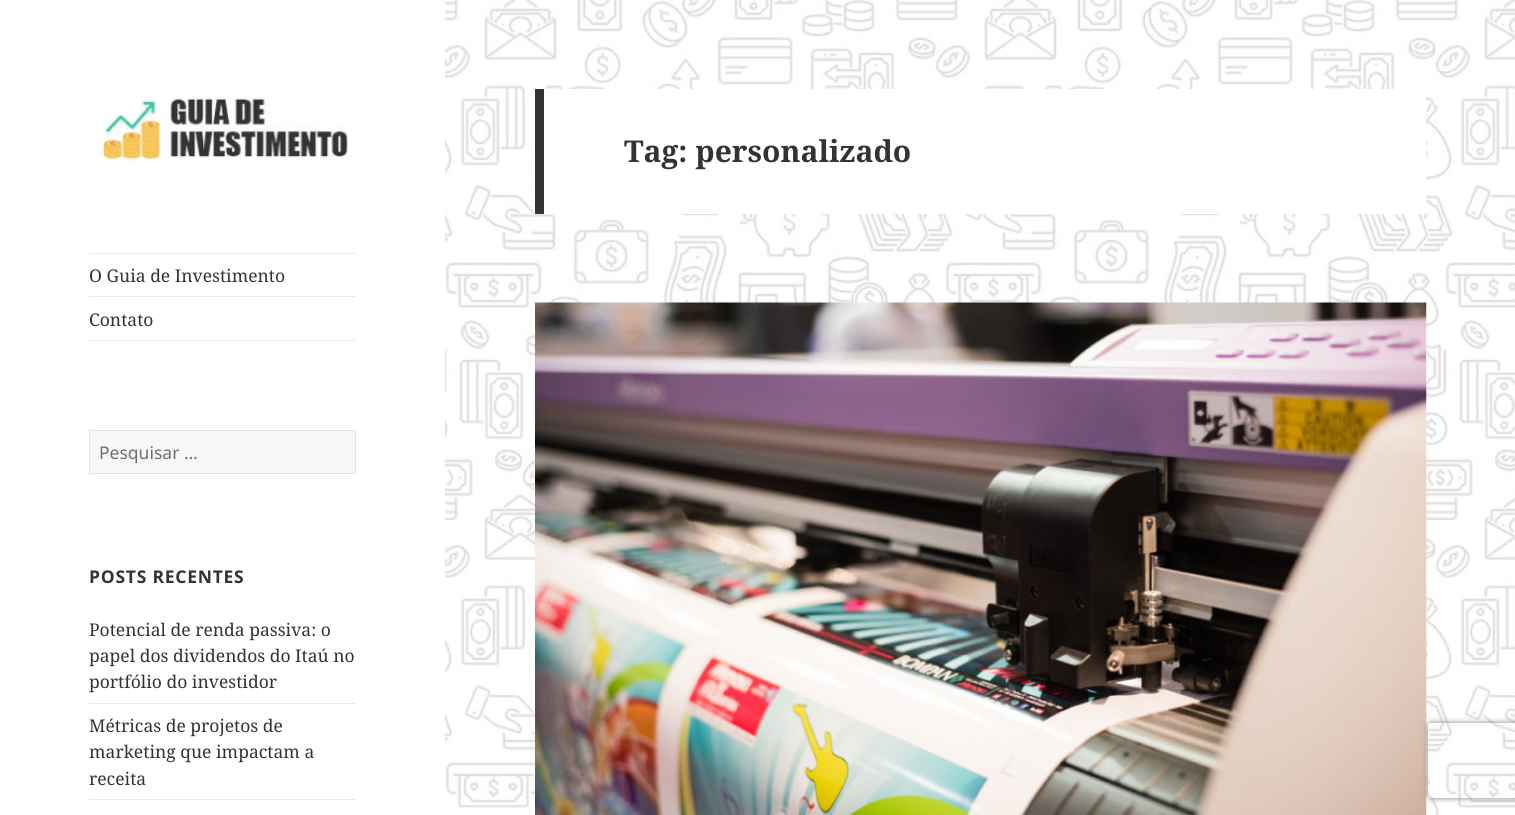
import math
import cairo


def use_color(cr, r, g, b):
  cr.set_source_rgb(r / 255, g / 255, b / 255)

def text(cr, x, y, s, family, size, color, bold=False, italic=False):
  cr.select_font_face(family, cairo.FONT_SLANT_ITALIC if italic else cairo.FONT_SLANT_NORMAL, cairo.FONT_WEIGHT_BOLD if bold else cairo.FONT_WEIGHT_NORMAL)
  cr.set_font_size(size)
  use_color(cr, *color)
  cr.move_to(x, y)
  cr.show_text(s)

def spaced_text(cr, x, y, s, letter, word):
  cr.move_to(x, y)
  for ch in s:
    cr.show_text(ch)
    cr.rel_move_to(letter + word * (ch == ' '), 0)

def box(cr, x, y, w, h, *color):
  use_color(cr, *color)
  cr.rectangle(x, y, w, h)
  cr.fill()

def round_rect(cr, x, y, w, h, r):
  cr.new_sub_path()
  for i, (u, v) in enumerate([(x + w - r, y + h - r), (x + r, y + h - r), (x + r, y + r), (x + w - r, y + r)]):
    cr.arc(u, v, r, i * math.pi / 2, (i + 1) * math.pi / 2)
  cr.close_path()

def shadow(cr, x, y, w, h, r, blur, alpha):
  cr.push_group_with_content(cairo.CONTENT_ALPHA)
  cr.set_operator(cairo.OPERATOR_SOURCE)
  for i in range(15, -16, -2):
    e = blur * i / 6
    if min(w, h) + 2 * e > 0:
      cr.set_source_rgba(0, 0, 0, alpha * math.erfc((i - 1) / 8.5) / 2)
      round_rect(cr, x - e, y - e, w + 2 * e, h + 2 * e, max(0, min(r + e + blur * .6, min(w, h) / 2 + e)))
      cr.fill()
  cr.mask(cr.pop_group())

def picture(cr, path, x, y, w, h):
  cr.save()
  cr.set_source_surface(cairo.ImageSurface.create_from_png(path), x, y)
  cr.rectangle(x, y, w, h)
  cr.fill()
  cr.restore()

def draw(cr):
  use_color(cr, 255, 255, 255)
  cr.paint()
  picture(cr, "img_01.png", 445, 0, 1070, 815)
  box(cr, 544, 89, 882, 125, 255, 255, 255)
  box(cr, 535, 89, 9, 125, 51, 51, 51)
  picture(cr, "img_02.png", 535, 302, 892, 513)
  picture(cr, "img_03.png", 97, 97, 251, 67)
  box(cr, 89, 253, 267, 1, 235, 235, 235)
  box(cr, 89, 340, 267, 1, 235, 235, 235)
  box(cr, 89, 296, 267, 1, 235, 235, 235)
  use_color(cr, 247, 247, 247)
  cr.rectangle(89.5, 430.5, 266, 43)
  cr.fill_preserve()
  use_color(cr, 227, 227, 227)
  cr.set_line_width(1)
  cr.stroke()
  box(cr, 89, 703, 267, 1, 235, 235, 235)
  box(cr, 89, 799, 267, 1, 235, 235, 235)
  cr.save()
  cr.set_fill_rule(cairo.FILL_RULE_EVEN_ODD)
  cr.new_path()
  cr.move_to(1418, 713)
  cr.line_to(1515, 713)
  cr.line_to(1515, 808)
  cr.line_to(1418, 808)
  cr.close_path()
  cr.move_to(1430.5, 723)
  cr.line_to(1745.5, 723)
  cr.curve_to(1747, 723, 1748, 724, 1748, 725.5)
  cr.line_to(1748, 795.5)
  cr.curve_to(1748, 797, 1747, 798, 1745.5, 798)
  cr.line_to(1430.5, 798)
  cr.curve_to(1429, 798, 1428, 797, 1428, 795.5)
  cr.line_to(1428, 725.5)
  cr.curve_to(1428, 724, 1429, 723, 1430.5, 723)
  cr.close_path()
  cr.clip()
  use_color(cr, 128, 128, 128)
  shadow(cr, 1428, 723, 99, 75, 2.5, 3, 1)
  cr.restore()
  text(cr, 624, 162, "Tag: personalizado", "Noto Serif", 30, (51, 51, 51), bold=True)
  text(cr, 89, 282, "O Guia de Investimento", "Noto Serif", 17.5, (51, 51, 51))
  text(cr, 89, 326, "Contato", "Noto Serif", 17.5, (51, 51, 51))
  text(cr, 99, 459, "Pesquisar …", "Noto Sans", 17.5, (110, 110, 110))
  cr.select_font_face("Noto Sans", cairo.FONT_SLANT_NORMAL, cairo.FONT_WEIGHT_BOLD)
  use_color(cr, 51, 51, 51)
  spaced_text(cr, 89, 583, "POSTS RECENTES", 0.75, 0)
  text(cr, 89, 636, "Potencial de renda passiva: o", "Noto Serif", 17.5, (51, 51, 51))
  text(cr, 89, 662, "papel dos dividendos do Itaú no", "Noto Serif", 17.5, (51, 51, 51))
  text(cr, 89, 688, "portfólio do investidor", "Noto Serif", 17.5, (51, 51, 51))
  text(cr, 89, 732, "Métricas de projetos de", "Noto Serif", 17.5, (51, 51, 51))
  text(cr, 89, 758, "marketing que impactam a", "Noto Serif", 17.5, (51, 51, 51))
  text(cr, 89, 785, "receita", "Noto Serif", 17.5, (51, 51, 51))


surface = cairo.ImageSurface(cairo.FORMAT_RGB24, 1515, 815)
cr = cairo.Context(surface)
options = cairo.FontOptions()
options.set_hint_metrics(cairo.HINT_METRICS_OFF)
options.set_hint_style(cairo.HINT_STYLE_NONE)
cr.set_font_options(options)
cr.set_miter_limit(4)
draw(cr)
surface.write_to_png("out.png")
